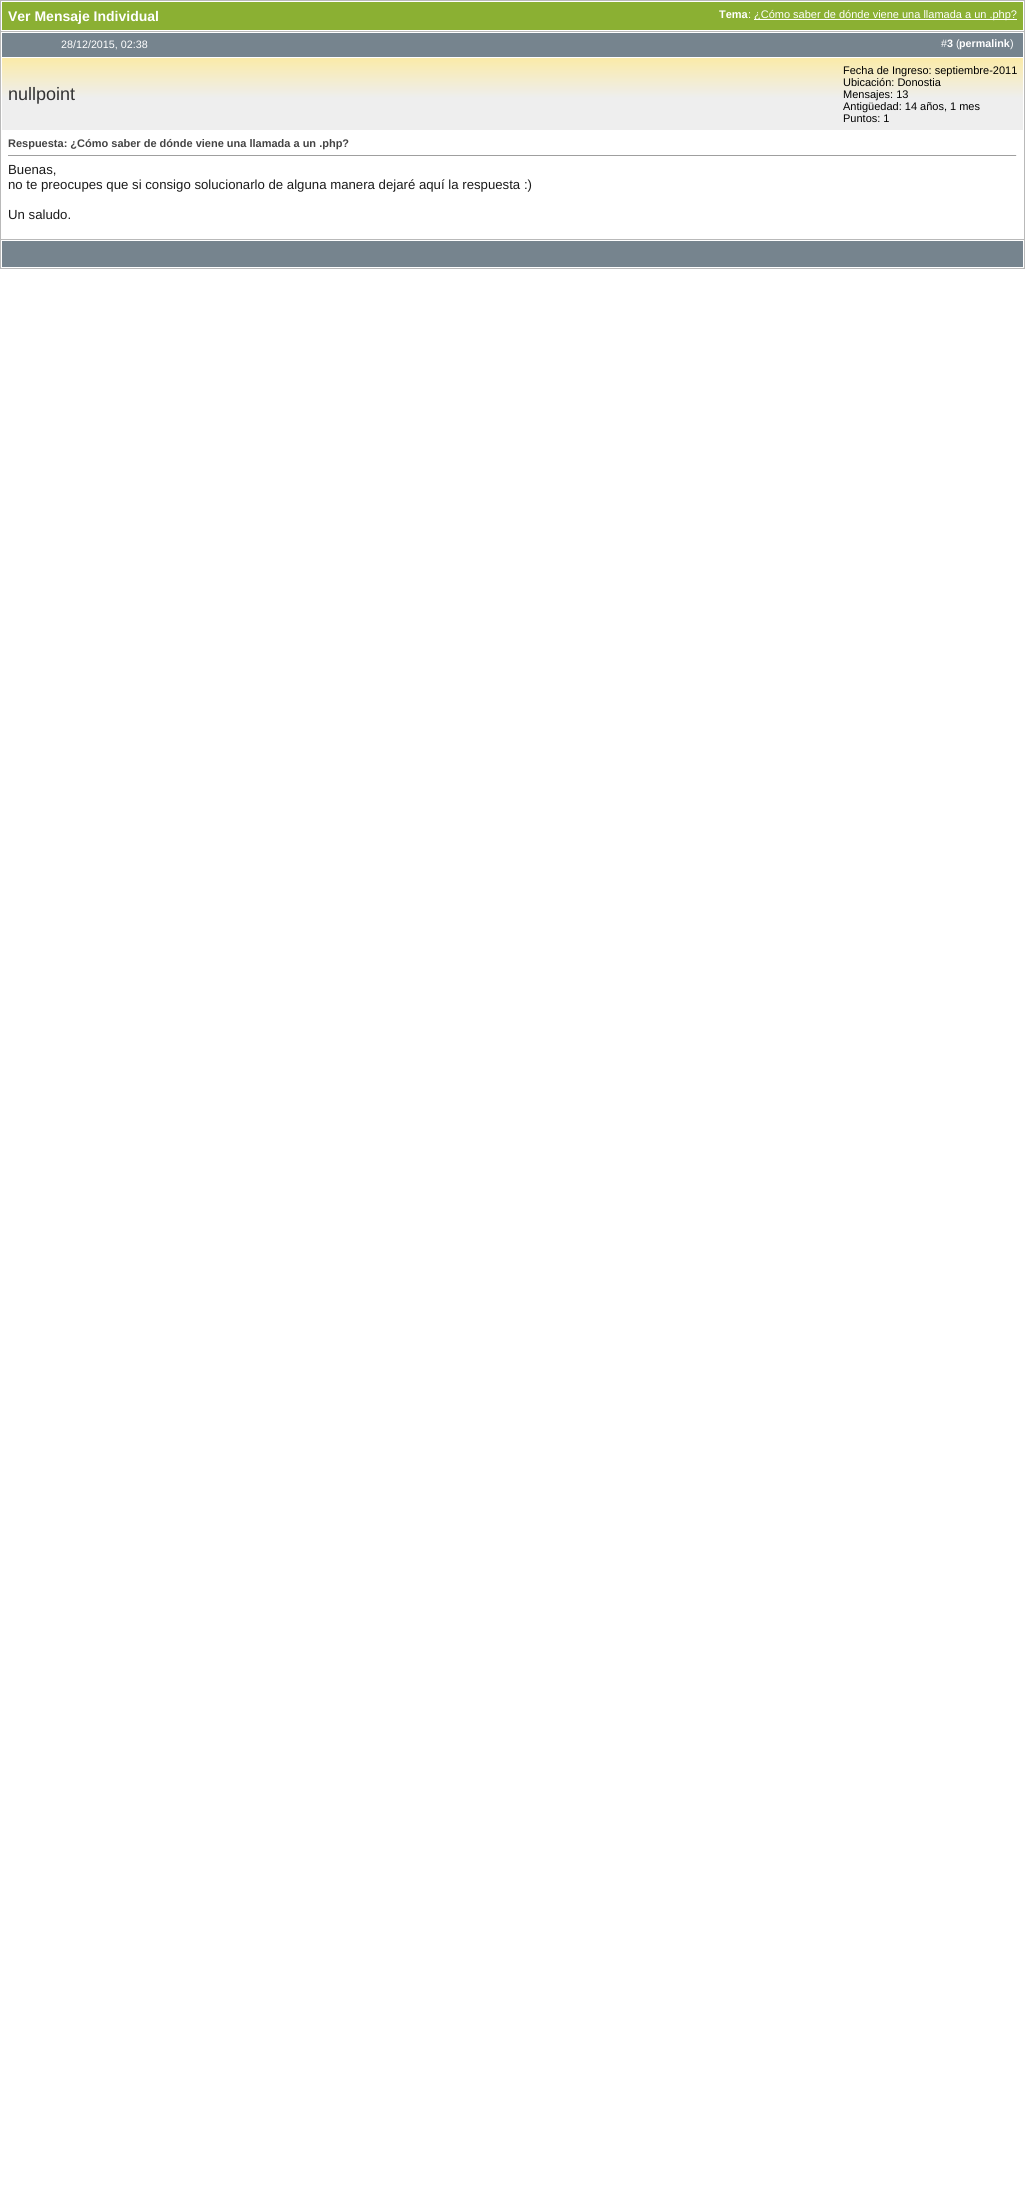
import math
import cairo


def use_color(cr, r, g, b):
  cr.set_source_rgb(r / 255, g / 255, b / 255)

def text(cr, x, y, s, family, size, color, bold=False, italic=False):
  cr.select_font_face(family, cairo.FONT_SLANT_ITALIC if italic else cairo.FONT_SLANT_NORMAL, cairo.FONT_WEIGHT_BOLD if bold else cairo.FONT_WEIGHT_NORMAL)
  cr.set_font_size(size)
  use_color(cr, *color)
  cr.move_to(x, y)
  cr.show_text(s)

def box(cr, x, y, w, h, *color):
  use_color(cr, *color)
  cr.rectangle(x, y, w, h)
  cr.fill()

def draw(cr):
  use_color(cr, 255, 255, 255)
  cr.paint()
  box(cr, 0, 0, 1025, 1, 185, 185, 185)
  box(cr, 1024, 0, 1, 31, 185, 185, 185)
  box(cr, 0, 0, 1, 31, 185, 185, 185)
  box(cr, 2, 2, 1021, 28, 139, 176, 51)
  box(cr, 754, 19, 263, 1, 255, 255, 255)
  cr.rectangle(0.5, 31.5, 1024, 208)
  use_color(cr, 185, 185, 185)
  cr.set_line_width(1)
  cr.stroke()
  box(cr, 2, 33, 1021, 24, 118, 132, 142)
  gradient = cairo.LinearGradient(2, 58, 2, 98)
  gradient.add_color_stop_rgba(0, 0.984, 0.922, 0.659, 1)
  gradient.add_color_stop_rgba(1, 0.933, 0.933, 0.933, 1)
  cr.set_source(gradient)
  cr.rectangle(2, 58, 1021, 72)
  cr.fill()
  box(cr, 8, 155, 1009, 1, 159, 159, 159)
  box(cr, 1016, 155, 1, 1, 238, 238, 238)
  box(cr, 1024, 240, 1, 29, 185, 185, 185)
  box(cr, 0, 268, 1025, 1, 185, 185, 185)
  box(cr, 0, 240, 1, 29, 185, 185, 185)
  box(cr, 2, 241, 1021, 26, 118, 132, 142)
  text(cr, 8, 21, "Ver Mensaje Individual", "Liberation Sans", 14, (255, 255, 255), bold=True)
  text(cr, 719, 18, "Tema", "Liberation Sans", 11, (255, 255, 255), bold=True)
  text(cr, 748, 18, ":", "Liberation Sans", 11, (255, 255, 255))
  text(cr, 754, 18, "¿Cómo saber de dónde viene una llamada a un .php?", "Liberation Sans", 11, (255, 255, 255))
  text(cr, 61, 48, "28/12/2015, 02:38", "Liberation Sans", 10.75, (255, 255, 255))
  text(cr, 941, 47, "#", "Liberation Sans", 10.75, (255, 255, 255))
  text(cr, 947, 47, "3", "Liberation Sans", 10.75, (255, 255, 255), bold=True)
  text(cr, 956, 47, "(", "Liberation Sans", 10.75, (255, 255, 255))
  text(cr, 959, 47, "permalink", "Liberation Sans", 10.75, (255, 255, 255), bold=True)
  text(cr, 1010, 47, ")", "Liberation Sans", 10.75, (255, 255, 255))
  text(cr, 8, 100, "nullpoint", "Liberation Sans", 18, (51, 51, 51))
  text(cr, 843, 74, "Fecha de Ingreso: septiembre-2011", "Liberation Sans", 11, (0, 0, 0))
  text(cr, 843, 86, "Ubicación: Donostia", "Liberation Sans", 11, (0, 0, 0))
  text(cr, 843, 98, "Mensajes: 13", "Liberation Sans", 11, (0, 0, 0))
  text(cr, 843, 110, "Antigüedad: 14 años, 1 mes", "Liberation Sans", 11, (0, 0, 0))
  text(cr, 843, 122, "Puntos: 1", "Liberation Sans", 11, (0, 0, 0))
  text(cr, 8, 147, "Respuesta: ¿Cómo saber de dónde viene una llamada a un .php?", "Liberation Sans", 11, (68, 68, 68), bold=True)
  text(cr, 8, 174, "Buenas,", "Liberation Sans", 13.2, (26, 26, 26))
  text(cr, 8, 189, "no te preocupes que si consigo solucionarlo de alguna manera dejaré aquí la respuesta :)", "Liberation Sans", 13.2, (26, 26, 26))
  text(cr, 8, 219, "Un saludo.", "Liberation Sans", 13.2, (26, 26, 26))


surface = cairo.ImageSurface(cairo.FORMAT_RGB24, 1025, 2201)
cr = cairo.Context(surface)
options = cairo.FontOptions()
options.set_hint_metrics(cairo.HINT_METRICS_OFF)
options.set_hint_style(cairo.HINT_STYLE_NONE)
cr.set_font_options(options)
cr.set_miter_limit(4)
draw(cr)
surface.write_to_png("out.png")
